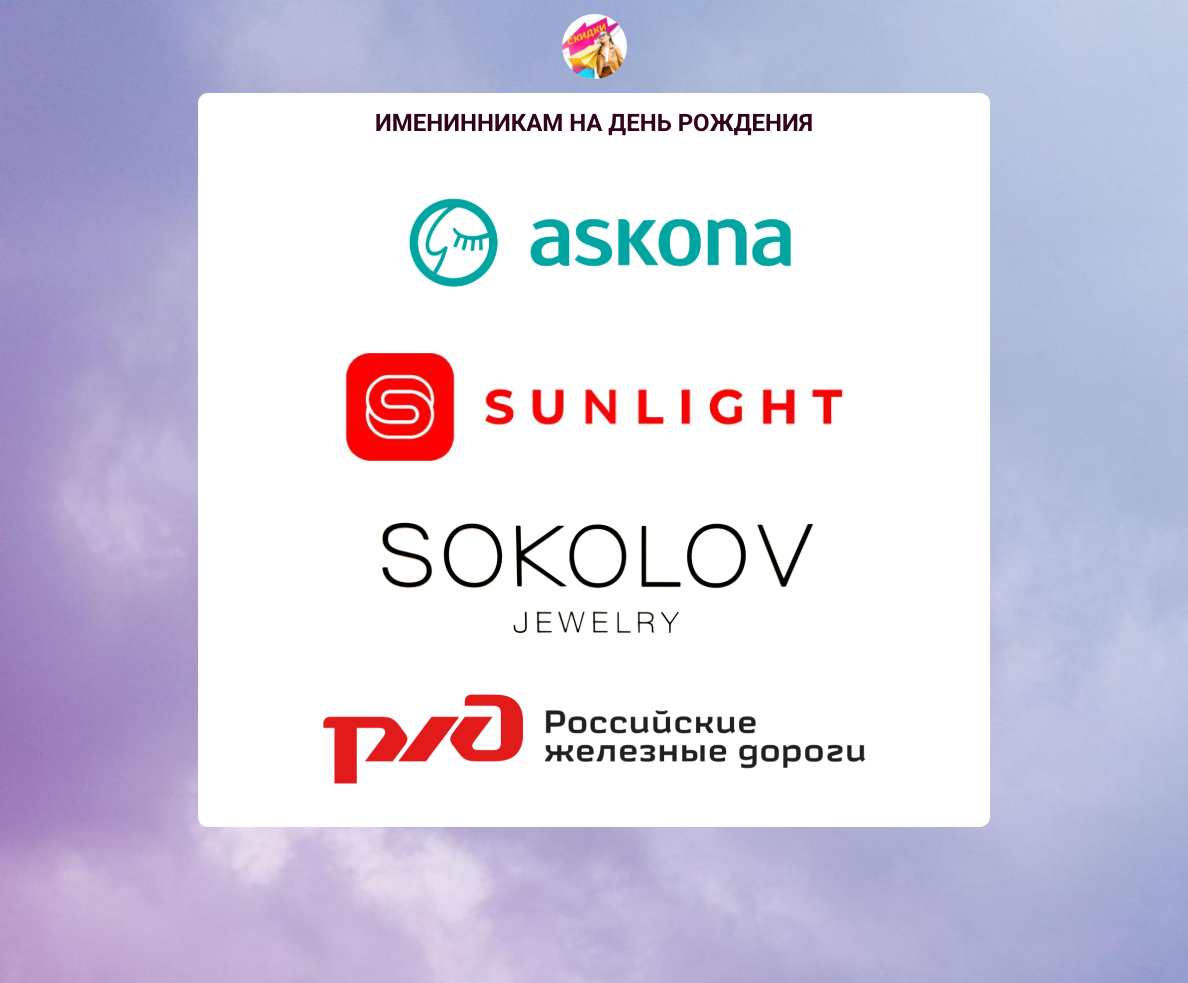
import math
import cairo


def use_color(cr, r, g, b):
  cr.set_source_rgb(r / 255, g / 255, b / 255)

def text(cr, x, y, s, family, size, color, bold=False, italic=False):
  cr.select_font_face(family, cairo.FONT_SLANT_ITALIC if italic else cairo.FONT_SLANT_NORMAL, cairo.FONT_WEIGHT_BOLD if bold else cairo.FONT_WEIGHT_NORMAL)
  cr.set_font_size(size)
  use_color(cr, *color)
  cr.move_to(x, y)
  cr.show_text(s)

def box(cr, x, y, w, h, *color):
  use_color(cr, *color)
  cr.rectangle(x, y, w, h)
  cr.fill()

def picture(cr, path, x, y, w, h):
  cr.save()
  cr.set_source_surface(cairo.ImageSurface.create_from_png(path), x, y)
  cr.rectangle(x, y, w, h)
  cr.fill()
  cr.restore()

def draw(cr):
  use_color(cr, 255, 255, 255)
  cr.paint()
  picture(cr, "img_01.png", 0, 0, 1188, 983)
  picture(cr, "img_02.png", 562, 14, 65, 65)
  use_color(cr, 255, 255, 255)
  cr.new_path()
  cr.move_to(208, 93)
  cr.line_to(980, 93)
  cr.curve_to(985.5, 93, 990, 97.5, 990, 103)
  cr.line_to(990, 155)
  cr.line_to(198, 155)
  cr.line_to(198, 103)
  cr.curve_to(198, 97.5, 202.5, 93, 208, 93)
  cr.close_path()
  cr.fill()
  box(cr, 198, 155, 792, 504, 255, 255, 255)
  picture(cr, "img_03.png", 409, 198, 382, 89)
  picture(cr, "img_04.png", 345, 353, 498, 108)
  picture(cr, "img_05.png", 381, 522, 433, 112)
  cr.new_path()
  cr.move_to(198, 659)
  cr.line_to(990, 659)
  cr.line_to(990, 817)
  cr.curve_to(990, 822.5, 985.5, 827, 980, 827)
  cr.line_to(208, 827)
  cr.curve_to(202.5, 827, 198, 822.5, 198, 817)
  cr.close_path()
  cr.fill()
  picture(cr, "img_06.png", 323, 694, 543, 90)
  text(cr, 375, 131, "ИМЕНИННИКАМ НА ДЕНЬ РОЖДЕНИЯ", "Roboto", 24, (48, 4, 26), bold=True)


surface = cairo.ImageSurface(cairo.FORMAT_RGB24, 1188, 983)
cr = cairo.Context(surface)
options = cairo.FontOptions()
options.set_hint_metrics(cairo.HINT_METRICS_OFF)
options.set_hint_style(cairo.HINT_STYLE_NONE)
cr.set_font_options(options)
cr.set_miter_limit(4)
draw(cr)
surface.write_to_png("out.png")
